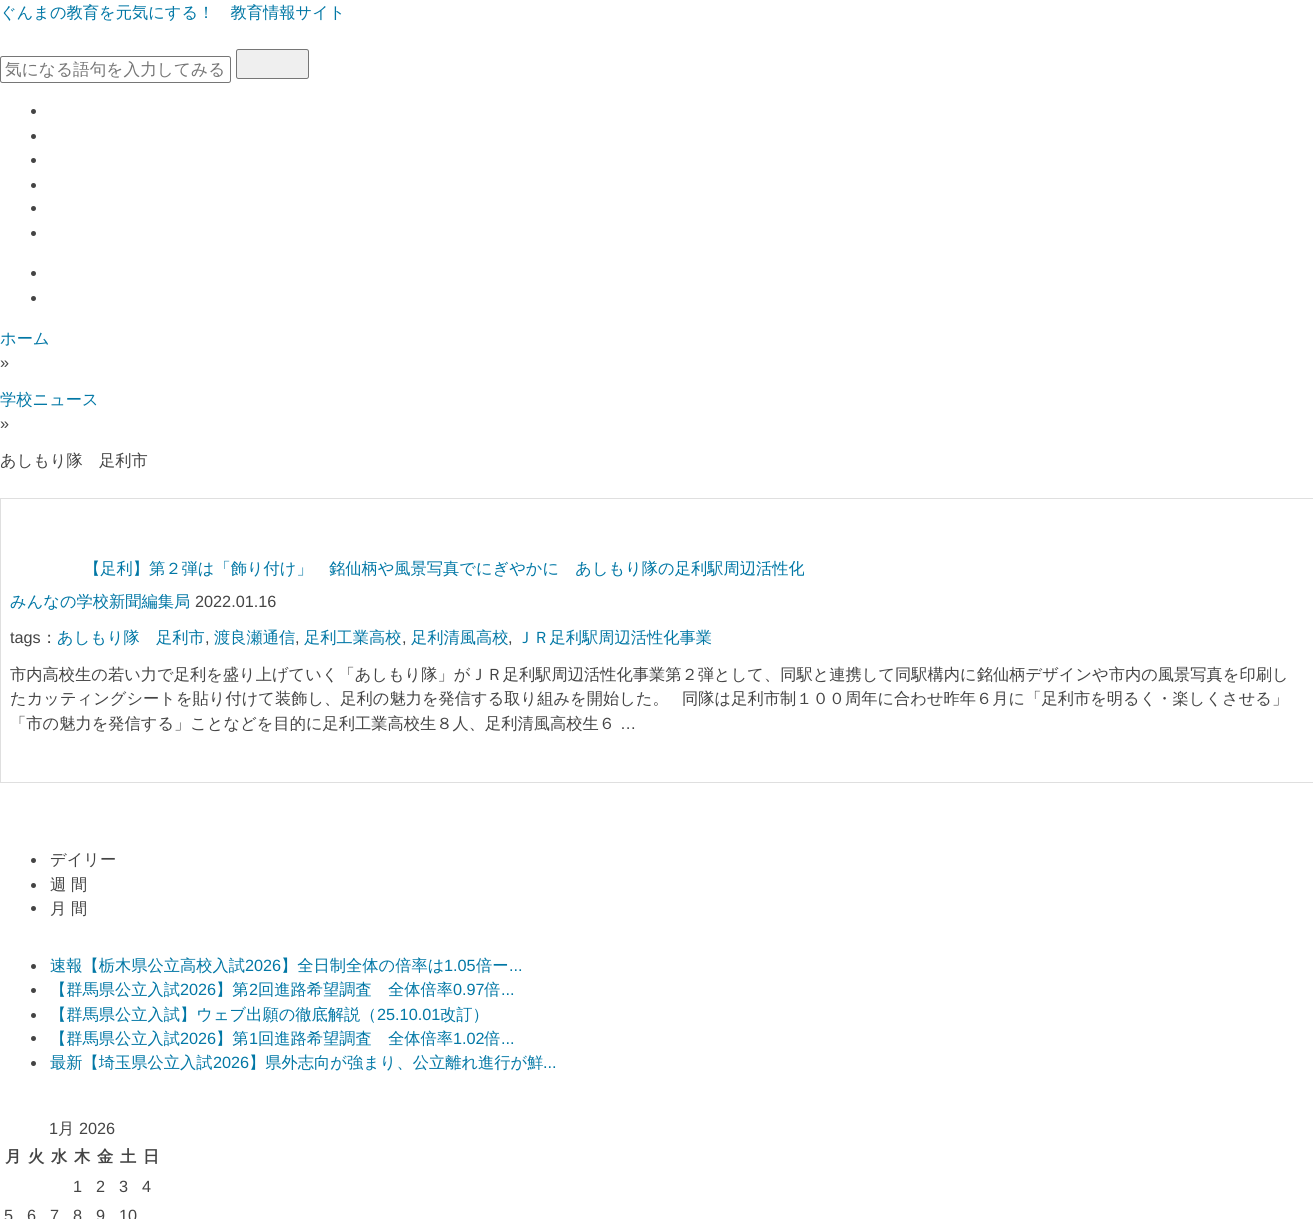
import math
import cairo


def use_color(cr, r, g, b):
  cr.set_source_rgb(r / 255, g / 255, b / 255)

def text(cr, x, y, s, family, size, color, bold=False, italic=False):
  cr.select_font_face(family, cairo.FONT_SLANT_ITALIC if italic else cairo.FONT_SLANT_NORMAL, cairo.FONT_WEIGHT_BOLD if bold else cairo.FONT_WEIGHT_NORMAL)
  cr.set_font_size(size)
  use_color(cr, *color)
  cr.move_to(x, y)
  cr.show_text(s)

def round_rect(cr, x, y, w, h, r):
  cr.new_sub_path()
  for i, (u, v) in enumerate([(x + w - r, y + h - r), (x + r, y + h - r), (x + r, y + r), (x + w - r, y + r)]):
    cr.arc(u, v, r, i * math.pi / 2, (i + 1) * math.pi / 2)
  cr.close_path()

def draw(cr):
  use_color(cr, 255, 255, 255)
  cr.paint()
  round_rect(cr, 0.5, 56.5, 230, 26, 2)
  use_color(cr, 118, 118, 118)
  cr.set_line_width(1)
  cr.stroke()
  use_color(cr, 239, 239, 239)
  round_rect(cr, 236.5, 49.5, 72, 29, 2)
  cr.fill_preserve()
  use_color(cr, 118, 118, 118)
  cr.stroke()
  use_color(cr, 68, 68, 68)
  cr.arc(33.5, 111.5, 2.5, 0, 2 * math.pi)
  cr.fill()
  cr.arc(33.5, 136.5, 2.5, 0, 2 * math.pi)
  cr.fill()
  cr.arc(33.5, 160.5, 2.5, 0, 2 * math.pi)
  cr.fill()
  cr.arc(33.5, 185.5, 2.5, 0, 2 * math.pi)
  cr.fill()
  cr.arc(33.5, 208.5, 2.5, 0, 2 * math.pi)
  cr.fill()
  cr.arc(33.5, 233.5, 2.5, 0, 2 * math.pi)
  cr.fill()
  cr.arc(33.5, 273.5, 2.5, 0, 2 * math.pi)
  cr.fill()
  cr.arc(33.5, 298.5, 2.5, 0, 2 * math.pi)
  cr.fill()
  cr.rectangle(0.5, 498.5, 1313, 284)
  use_color(cr, 223, 223, 223)
  cr.stroke()
  use_color(cr, 68, 68, 68)
  cr.arc(33.5, 860.5, 2.5, 0, 2 * math.pi)
  cr.fill()
  cr.arc(33.5, 885.5, 2.5, 0, 2 * math.pi)
  cr.fill()
  cr.arc(33.5, 908.5, 2.5, 0, 2 * math.pi)
  cr.fill()
  cr.arc(33.5, 966.5, 2.5, 0, 2 * math.pi)
  cr.fill()
  cr.arc(33.5, 990.5, 2.5, 0, 2 * math.pi)
  cr.fill()
  cr.arc(33.5, 1015.5, 2.5, 0, 2 * math.pi)
  cr.fill()
  cr.arc(33.5, 1038.5, 2.5, 0, 2 * math.pi)
  cr.fill()
  cr.arc(33.5, 1063.5, 2.5, 0, 2 * math.pi)
  cr.fill()
  text(cr, 0, 18, "ぐんまの教育を元気にする！　教育情報サイト", "WenQuanYi Zen Hei Medium", 16.25, (1, 119, 165))
  text(cr, 5, 75, "気になる語句を入力してみる", "WenQuanYi Zen Hei Medium", 16.7, (117, 117, 117))
  text(cr, 0, 344, "ホーム", "WenQuanYi Zen Hei Medium", 16.25, (1, 119, 165))
  text(cr, 0, 368, "»", "Liberation Sans", 16.25, (68, 68, 68))
  text(cr, 0, 405, "学校ニュース", "WenQuanYi Zen Hei Medium", 16.25, (1, 119, 165))
  text(cr, 0, 429, "»", "Liberation Sans", 16.25, (68, 68, 68))
  text(cr, 0, 466, "あしもり隊　足利市", "WenQuanYi Zen Hei Medium", 16.25, (68, 68, 68))
  text(cr, 84, 574, "【足利】第２弾は「飾り付け」　銘仙柄や風景写真でにぎやかに　あしもり隊の足利駅周辺活性化", "WenQuanYi Zen Hei Medium", 16.25, (1, 119, 165))
  text(cr, 10, 607, "みんなの学校新聞編集局", "WenQuanYi Zen Hei Medium", 16.25, (1, 119, 165))
  text(cr, 195, 607, "2022.01.16", "Liberation Sans", 16.25, (68, 68, 68))
  text(cr, 10, 643, "tags", "Liberation Sans", 16.25, (68, 68, 68))
  text(cr, 41, 643, "：", "WenQuanYi Zen Hei Medium", 16.25, (68, 68, 68))
  text(cr, 57, 643, "あしもり隊　足利市", "WenQuanYi Zen Hei Medium", 16.25, (1, 119, 165))
  text(cr, 214, 643, "渡良瀬通信", "WenQuanYi Zen Hei Medium", 16.25, (1, 119, 165))
  text(cr, 304, 643, "足利工業高校", "WenQuanYi Zen Hei Medium", 16.25, (1, 119, 165))
  text(cr, 411, 643, "足利清風高校", "WenQuanYi Zen Hei Medium", 16.25, (1, 119, 165))
  text(cr, 517, 643, "ＪＲ足利駅周辺活性化事業", "WenQuanYi Zen Hei Medium", 16.25, (1, 119, 165))
  text(cr, 205, 643, ",", "Liberation Sans", 16.25, (68, 68, 68))
  text(cr, 295, 643, ",", "Liberation Sans", 16.25, (68, 68, 68))
  text(cr, 402, 643, ",", "Liberation Sans", 16.25, (68, 68, 68))
  text(cr, 508, 643, ",", "Liberation Sans", 16.25, (68, 68, 68))
  text(cr, 10, 680, "市内高校生の若い力で足利を盛り上げていく「あしもり隊」がＪＲ足利駅周辺活性化事業第２弾として、同駅と連携して同駅構内に銘仙柄デザインや市内の風景写真を印刷し", "WenQuanYi Zen Hei Medium", 16.25, (68, 68, 68))
  text(cr, 10, 704, "たカッティングシートを貼り付けて装飾し、足利の魅力を発信する取り組みを開始した。", "WenQuanYi Zen Hei Medium", 16.25, (68, 68, 68))
  text(cr, 682, 704, "同隊は足利市制１００周年に合わせ昨年６月に「足利市を明るく・楽しくさせる」", "WenQuanYi Zen Hei Medium", 16.25, (68, 68, 68))
  text(cr, 10, 729, "「市の魅力を発信する」ことなどを目的に足利工業高校生８人、足利清風高校生６", "WenQuanYi Zen Hei Medium", 16.25, (68, 68, 68))
  text(cr, 620, 729, "…", "Liberation Sans", 16.25, (68, 68, 68))
  text(cr, 50, 865, "デイリー", "WenQuanYi Zen Hei Medium", 16.25, (68, 68, 68))
  text(cr, 50, 890, "週 間", "WenQuanYi Zen Hei Medium", 16.25, (68, 68, 68))
  text(cr, 50, 914, "月 間", "WenQuanYi Zen Hei Medium", 16.25, (68, 68, 68))
  text(cr, 50, 971, "速報【栃木県公立高校入試", "WenQuanYi Zen Hei Medium", 16.25, (1, 119, 165))
  text(cr, 245, 971, "2026", "Liberation Sans", 16.25, (1, 119, 165))
  text(cr, 281, 971, "】全日制全体の倍率は", "WenQuanYi Zen Hei Medium", 16.25, (1, 119, 165))
  text(cr, 444, 971, "1.05", "Liberation Sans", 16.25, (1, 119, 165))
  text(cr, 476, 971, "倍ー", "WenQuanYi Zen Hei Medium", 16.25, (1, 119, 165))
  text(cr, 509, 971, "...", "Liberation Sans", 16.25, (1, 119, 165))
  text(cr, 50, 995, "【群馬県公立入試", "WenQuanYi Zen Hei Medium", 16.25, (1, 119, 165))
  text(cr, 180, 995, "2026", "Liberation Sans", 16.25, (1, 119, 165))
  text(cr, 216, 995, "】第", "WenQuanYi Zen Hei Medium", 16.25, (1, 119, 165))
  text(cr, 249, 995, "2", "Liberation Sans", 16.25, (1, 119, 165))
  text(cr, 258, 995, "回進路希望調査　全体倍率", "WenQuanYi Zen Hei Medium", 16.25, (1, 119, 165))
  text(cr, 453, 995, "0.97", "Liberation Sans", 16.25, (1, 119, 165))
  text(cr, 484, 995, "倍", "WenQuanYi Zen Hei Medium", 16.25, (1, 119, 165))
  text(cr, 501, 995, "...", "Liberation Sans", 16.25, (1, 119, 165))
  text(cr, 50, 1020, "【群馬県公立入試】ウェブ出願の徹底解説（", "WenQuanYi Zen Hei Medium", 16.25, (1, 119, 165))
  text(cr, 377, 1020, "25.10.01", "Liberation Sans", 16.25, (1, 119, 165))
  text(cr, 440, 1020, "改訂）", "WenQuanYi Zen Hei Medium", 16.25, (1, 119, 165))
  text(cr, 50, 1044, "【群馬県公立入試", "WenQuanYi Zen Hei Medium", 16.25, (1, 119, 165))
  text(cr, 180, 1044, "2026", "Liberation Sans", 16.25, (1, 119, 165))
  text(cr, 216, 1044, "】第", "WenQuanYi Zen Hei Medium", 16.25, (1, 119, 165))
  text(cr, 249, 1044, "1", "Liberation Sans", 16.25, (1, 119, 165))
  text(cr, 258, 1044, "回進路希望調査　全体倍率", "WenQuanYi Zen Hei Medium", 16.25, (1, 119, 165))
  text(cr, 453, 1044, "1.02", "Liberation Sans", 16.25, (1, 119, 165))
  text(cr, 484, 1044, "倍", "WenQuanYi Zen Hei Medium", 16.25, (1, 119, 165))
  text(cr, 501, 1044, "...", "Liberation Sans", 16.25, (1, 119, 165))
  text(cr, 50, 1068, "最新【埼玉県公立入試", "WenQuanYi Zen Hei Medium", 16.25, (1, 119, 165))
  text(cr, 213, 1068, "2026", "Liberation Sans", 16.25, (1, 119, 165))
  text(cr, 249, 1068, "】県外志向が強まり、公立離れ進行が鮮", "WenQuanYi Zen Hei Medium", 16.25, (1, 119, 165))
  text(cr, 543, 1068, "...", "Liberation Sans", 16.25, (1, 119, 165))
  text(cr, 49, 1134, "1", "Liberation Sans", 16.25, (68, 68, 68))
  text(cr, 58, 1134, "月", "WenQuanYi Zen Hei Medium", 16.25, (68, 68, 68))
  text(cr, 79, 1134, "2026", "Liberation Sans", 16.25, (68, 68, 68))
  text(cr, 5, 1162, "月", "WenQuanYi Zen Hei", 16.25, (68, 68, 68), bold=True)
  text(cr, 28, 1162, "火", "WenQuanYi Zen Hei", 16.25, (68, 68, 68), bold=True)
  text(cr, 51, 1162, "水", "WenQuanYi Zen Hei", 16.25, (68, 68, 68), bold=True)
  text(cr, 74, 1162, "木", "WenQuanYi Zen Hei", 16.25, (68, 68, 68), bold=True)
  text(cr, 97, 1162, "金", "WenQuanYi Zen Hei", 16.25, (68, 68, 68), bold=True)
  text(cr, 120, 1162, "土", "WenQuanYi Zen Hei", 16.25, (68, 68, 68), bold=True)
  text(cr, 143, 1162, "日", "WenQuanYi Zen Hei", 16.25, (68, 68, 68), bold=True)
  text(cr, 73, 1192, "1", "Liberation Sans", 16.25, (68, 68, 68))
  text(cr, 96, 1192, "2", "Liberation Sans", 16.25, (68, 68, 68))
  text(cr, 119, 1192, "3", "Liberation Sans", 16.25, (68, 68, 68))
  text(cr, 142, 1192, "4", "Liberation Sans", 16.25, (68, 68, 68))
  text(cr, 4, 1221, "5", "Liberation Sans", 16.25, (68, 68, 68))
  text(cr, 27, 1221, "6", "Liberation Sans", 16.25, (68, 68, 68))
  text(cr, 50, 1221, "7", "Liberation Sans", 16.25, (68, 68, 68))
  text(cr, 73, 1221, "8", "Liberation Sans", 16.25, (68, 68, 68))
  text(cr, 96, 1221, "9", "Liberation Sans", 16.25, (68, 68, 68))
  text(cr, 119, 1221, "10", "Liberation Sans", 16.25, (68, 68, 68))


surface = cairo.ImageSurface(cairo.FORMAT_RGB24, 1313, 1219)
cr = cairo.Context(surface)
options = cairo.FontOptions()
options.set_hint_metrics(cairo.HINT_METRICS_OFF)
options.set_hint_style(cairo.HINT_STYLE_NONE)
cr.set_font_options(options)
cr.set_miter_limit(4)
draw(cr)
surface.write_to_png("out.png")
